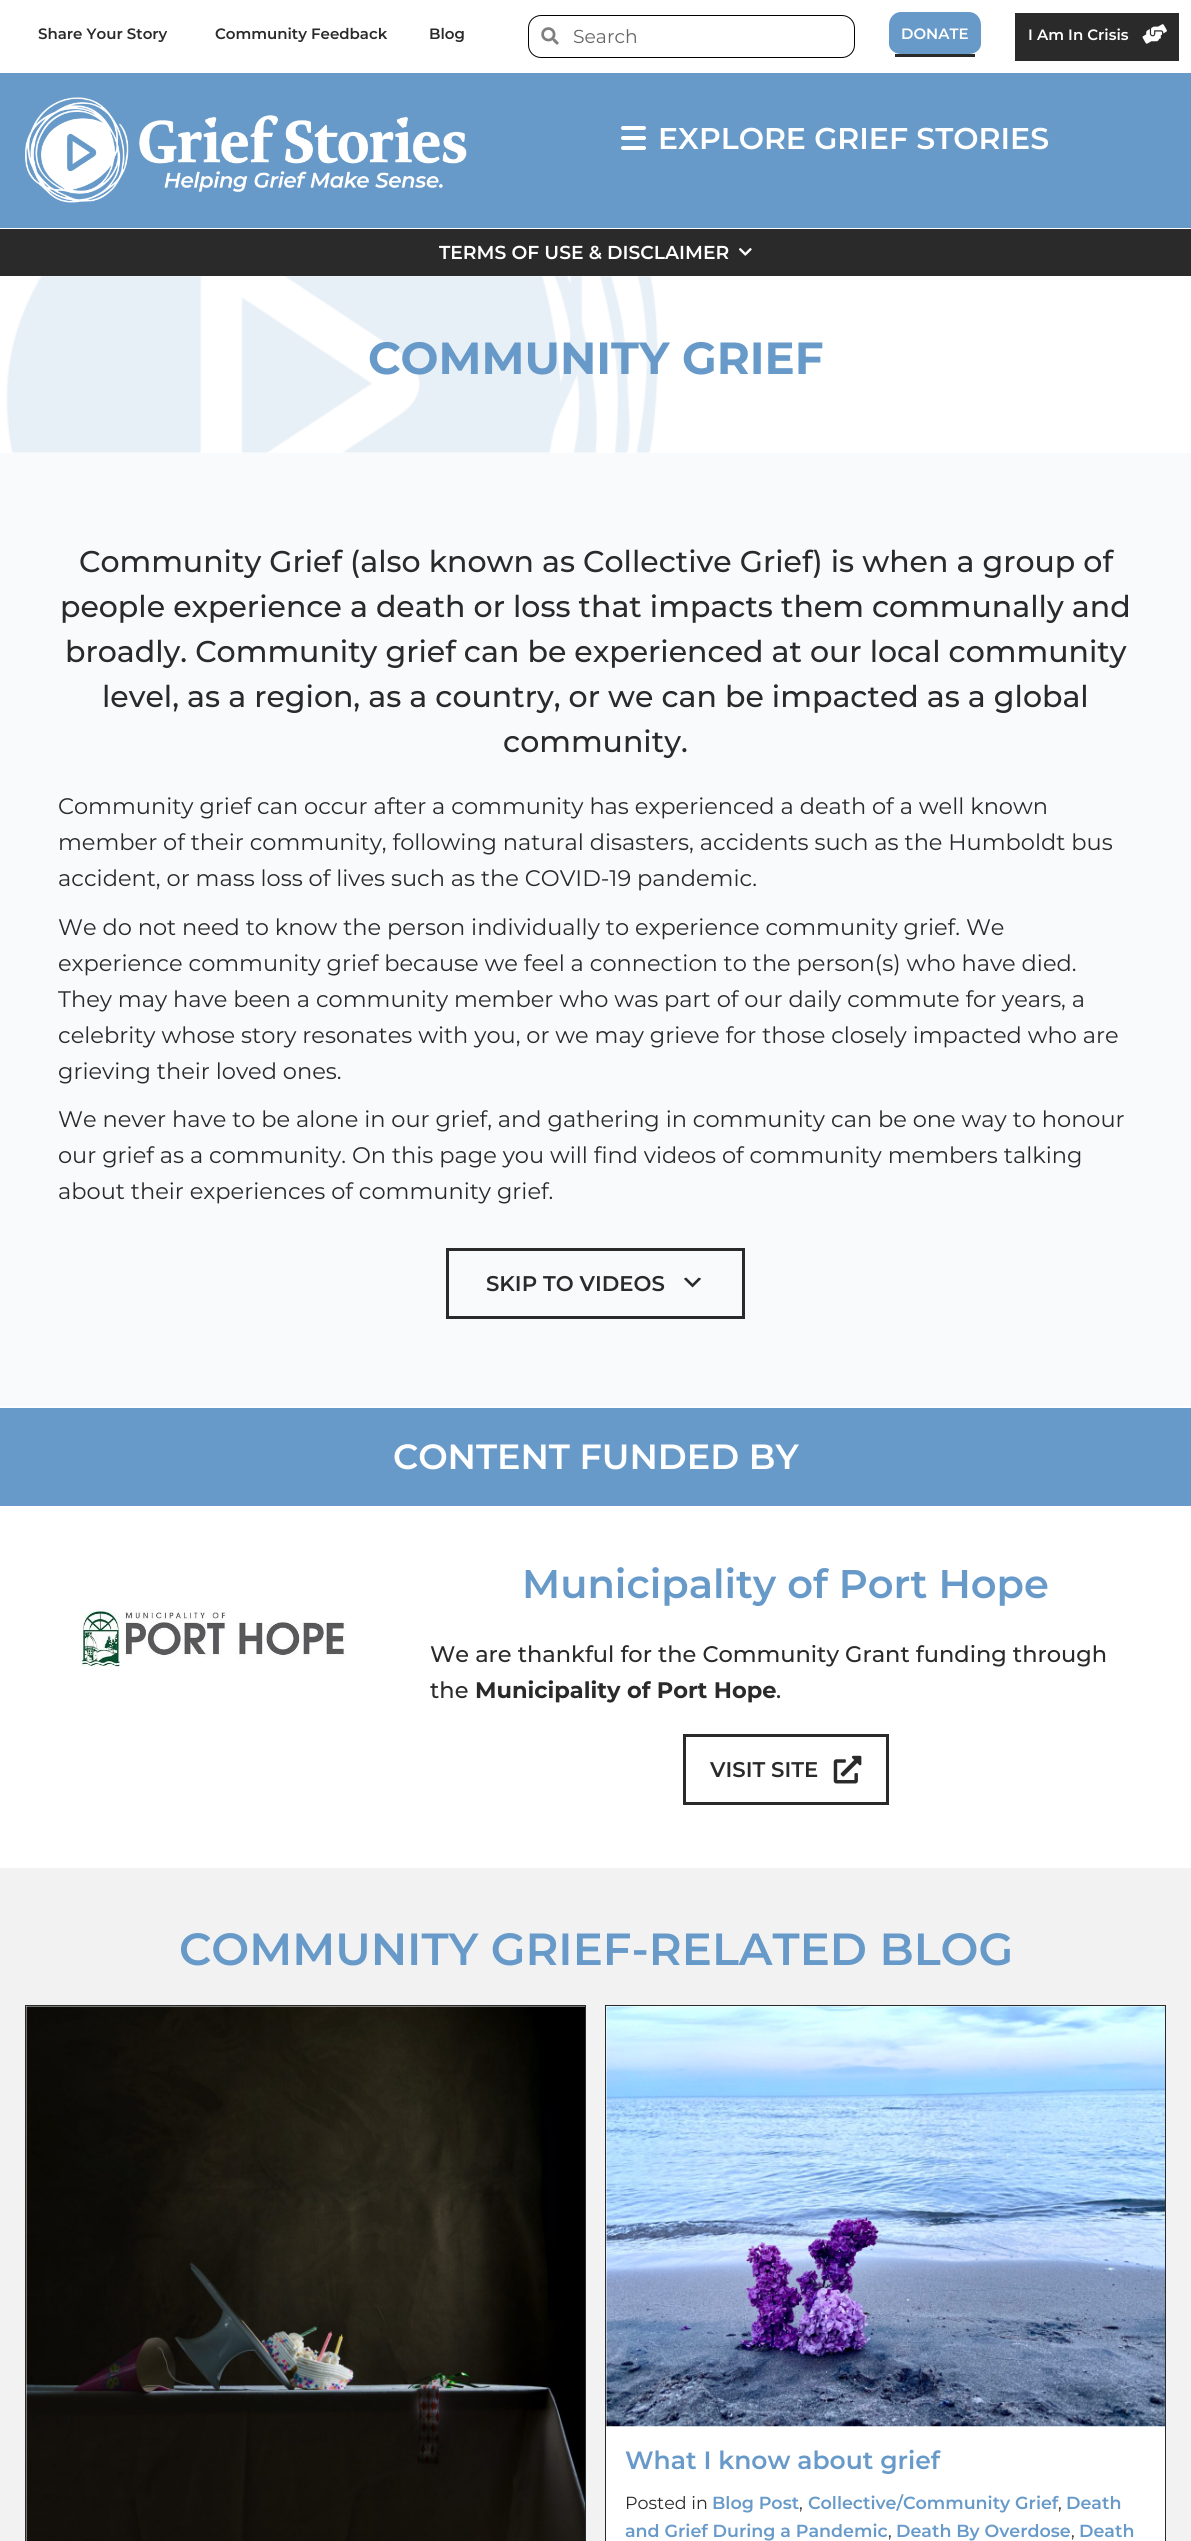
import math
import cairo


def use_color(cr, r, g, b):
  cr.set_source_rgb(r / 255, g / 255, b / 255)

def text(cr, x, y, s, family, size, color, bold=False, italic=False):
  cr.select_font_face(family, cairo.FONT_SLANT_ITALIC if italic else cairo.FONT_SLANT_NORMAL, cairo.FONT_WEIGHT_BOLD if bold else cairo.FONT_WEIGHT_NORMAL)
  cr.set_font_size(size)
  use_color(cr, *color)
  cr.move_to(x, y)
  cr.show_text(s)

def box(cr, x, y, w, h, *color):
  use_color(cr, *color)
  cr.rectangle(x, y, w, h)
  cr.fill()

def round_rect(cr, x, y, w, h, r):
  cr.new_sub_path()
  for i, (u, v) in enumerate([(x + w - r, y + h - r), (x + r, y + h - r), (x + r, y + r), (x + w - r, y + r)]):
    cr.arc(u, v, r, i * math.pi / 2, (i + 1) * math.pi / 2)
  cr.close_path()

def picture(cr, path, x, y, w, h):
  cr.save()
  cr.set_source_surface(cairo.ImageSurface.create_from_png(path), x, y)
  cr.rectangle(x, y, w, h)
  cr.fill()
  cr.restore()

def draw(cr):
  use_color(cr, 255, 255, 255)
  cr.paint()
  round_rect(cr, 528.5, 15.5, 326, 42, 12.5)
  use_color(cr, 0, 0, 0)
  cr.set_line_width(1)
  cr.stroke()
  picture(cr, "img_01.png", 541, 27, 18, 18)
  use_color(cr, 104, 154, 201)
  cr.new_path()
  cr.move_to(901, 12)
  cr.line_to(969, 12)
  cr.curve_to(976, 12, 981, 18, 981, 25)
  cr.line_to(981, 44)
  cr.curve_to(981, 49, 976, 54, 969, 54)
  cr.line_to(901, 54)
  cr.curve_to(894, 54, 889, 49, 889, 44)
  cr.line_to(889, 25)
  cr.curve_to(889, 18, 894, 12, 901, 12)
  cr.close_path()
  cr.fill()
  box(cr, 895, 54, 80, 3, 42, 42, 42)
  box(cr, 1015, 13, 164, 48, 42, 42, 42)
  picture(cr, "img_02.png", 1142, 24, 25, 20)
  box(cr, 0, 73, 1191, 155, 104, 154, 201)
  picture(cr, "img_03.png", 25, 97, 442, 106)
  use_color(cr, 255, 255, 255)
  round_rect(cr, 621, 136, 25, 4, 2)
  cr.fill()
  round_rect(cr, 621, 126, 25, 4, 2)
  cr.fill()
  round_rect(cr, 621, 146, 25, 4, 2)
  cr.fill()
  box(cr, 0, 229, 1191, 47, 42, 42, 42)
  picture(cr, "img_04.png", 739, 248, 13, 8)
  picture(cr, "img_05.png", 6, 276, 652, 177)
  box(cr, 0, 453, 1191, 953, 248, 250, 252)
  cr.rectangle(447.5, 1249.5, 296, 68)
  use_color(cr, 42, 42, 42)
  cr.set_line_width(3)
  cr.stroke()
  picture(cr, "img_06.png", 683, 1277, 19, 11)
  box(cr, 0, 1408, 1191, 98, 104, 154, 201)
  picture(cr, "img_07.png", 80, 1606, 266, 61)
  cr.rectangle(684.5, 1735.5, 203, 68)
  use_color(cr, 42, 42, 42)
  cr.stroke()
  picture(cr, "img_08.png", 833, 1755, 29, 29)
  box(cr, 0, 1868, 1191, 673, 242, 242, 242)
  use_color(cr, 255, 255, 255)
  cr.rectangle(25.5, 2005.5, 560, 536)
  cr.fill_preserve()
  use_color(cr, 42, 42, 42)
  cr.set_line_width(1)
  cr.stroke()
  picture(cr, "img_09.png", 26, 2006, 559, 535)
  use_color(cr, 255, 255, 255)
  cr.rectangle(605.5, 2005.5, 560, 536)
  cr.fill_preserve()
  use_color(cr, 42, 42, 42)
  cr.stroke()
  picture(cr, "img_10.png", 606, 2006, 559, 421)
  text(cr, 38, 39, "Share Your Story", "Montserrat SemiBold", 15, (42, 42, 42))
  text(cr, 215, 39, "Community Feedback", "Montserrat SemiBold", 15, (42, 42, 42))
  text(cr, 429, 39, "Blog", "Montserrat SemiBold", 15, (42, 42, 42))
  text(cr, 573, 43, "Search", "Montserrat", 18.75, (102, 102, 102))
  text(cr, 901, 39, "DONATE", "Montserrat SemiBold", 15, (255, 255, 255))
  text(cr, 1028, 40, "I Am In Crisis", "Montserrat SemiBold", 15, (255, 255, 255))
  text(cr, 658, 149, "EXPLORE GRIEF STORIES", "Montserrat SemiBold", 30, (255, 255, 255))
  text(cr, 439, 259, "TERMS OF USE & DISCLAIMER", "Montserrat SemiBold", 18.75, (255, 255, 255))
  text(cr, 368, 374, "COMMUNITY GRIEF", "Montserrat", 45, (104, 154, 201), bold=True)
  text(cr, 79, 572, "Community Grief (also known as Collective Grief) is when a group of", "Montserrat Medium", 30, (42, 42, 42))
  text(cr, 60, 617, "people experience a death or loss that impacts them communally and", "Montserrat Medium", 30, (42, 42, 42))
  text(cr, 65, 662, "broadly. Community grief can be experienced at our local community", "Montserrat Medium", 30, (42, 42, 42))
  text(cr, 102, 707, "level, as a region, as a country, or we can be impacted as a global", "Montserrat Medium", 30, (42, 42, 42))
  text(cr, 503, 752, "community.", "Montserrat Medium", 30, (42, 42, 42))
  text(cr, 58, 814, "Community grief can occur after a community has experienced a death of a well known", "Montserrat", 22.5, (42, 42, 42))
  text(cr, 58, 850, "member of their community, following natural disasters, accidents such as the Humboldt bus", "Montserrat", 22.5, (42, 42, 42))
  text(cr, 58, 886, "accident, or mass loss of lives such as the COVID-19 pandemic.", "Montserrat", 22.5, (42, 42, 42))
  text(cr, 58, 935, "We do not need to know the person individually to experience community grief. We", "Montserrat", 22.5, (42, 42, 42))
  text(cr, 58, 971, "experience community grief because we feel a connection to the person(s) who have died.", "Montserrat", 22.5, (42, 42, 42))
  text(cr, 58, 1007, "They may have been a community member who was part of our daily commute for years, a", "Montserrat", 22.5, (42, 42, 42))
  text(cr, 58, 1043, "celebrity whose story resonates with you, or we may grieve for those closely impacted who are", "Montserrat", 22.5, (42, 42, 42))
  text(cr, 58, 1079, "grieving their loved ones.", "Montserrat", 22.5, (42, 42, 42))
  text(cr, 58, 1127, "We never have to be alone in our grief, and gathering in community can be one way to honour", "Montserrat", 22.5, (42, 42, 42))
  text(cr, 58, 1163, "our grief as a community. On this page you will find videos of community members talking", "Montserrat", 22.5, (42, 42, 42))
  text(cr, 58, 1199, "about their experiences of community grief.", "Montserrat", 22.5, (42, 42, 42))
  text(cr, 486, 1291, "SKIP TO VIDEOS", "Montserrat SemiBold", 21.25, (42, 42, 42))
  text(cr, 393, 1469, "CONTENT FUNDED BY", "Montserrat SemiBold", 35, (255, 255, 255))
  text(cr, 522, 1598, "Municipality of Port Hope", "Montserrat SemiBold", 40, (104, 154, 201))
  text(cr, 430, 1662, "We are thankful for the Community Grant funding through", "Montserrat Medium", 22.5, (42, 42, 42))
  text(cr, 430, 1698, "the", "Montserrat Medium", 22.5, (42, 42, 42))
  text(cr, 475, 1698, "Municipality of Port Hope", "Montserrat", 22.5, (42, 42, 42), bold=True)
  text(cr, 776, 1698, ".", "Montserrat Medium", 22.5, (42, 42, 42))
  text(cr, 710, 1777, "VISIT SITE", "Montserrat SemiBold", 21.25, (42, 42, 42))
  text(cr, 179, 1965, "COMMUNITY GRIEF-RELATED BLOG", "Montserrat SemiBold", 45, (104, 154, 201))
  text(cr, 625, 2469, "What I know about grief", "Montserrat SemiBold", 25, (104, 154, 201))
  text(cr, 625, 2509, "Posted in", "Montserrat", 17.5, (42, 42, 42))
  text(cr, 712, 2509, "Blog Post", "Montserrat SemiBold", 17.5, (104, 154, 201))
  text(cr, 799, 2509, ",", "Montserrat", 17.5, (42, 42, 42))
  text(cr, 808, 2509, "Collective/Community Grief", "Montserrat SemiBold", 17.5, (104, 154, 201))
  text(cr, 1058, 2509, ",", "Montserrat", 17.5, (42, 42, 42))
  text(cr, 1066, 2509, "Death", "Montserrat SemiBold", 17.5, (104, 154, 201))
  text(cr, 625, 2537, "and Grief During a Pandemic", "Montserrat SemiBold", 17.5, (104, 154, 201))
  text(cr, 888, 2537, ",", "Montserrat", 17.5, (42, 42, 42))
  text(cr, 896, 2537, "Death By Overdose", "Montserrat SemiBold", 17.5, (104, 154, 201))
  text(cr, 1071, 2537, ",", "Montserrat", 17.5, (42, 42, 42))
  text(cr, 1079, 2537, "Death", "Montserrat SemiBold", 17.5, (104, 154, 201))


surface = cairo.ImageSurface(cairo.FORMAT_RGB24, 1191, 2541)
cr = cairo.Context(surface)
options = cairo.FontOptions()
options.set_hint_metrics(cairo.HINT_METRICS_OFF)
options.set_hint_style(cairo.HINT_STYLE_NONE)
cr.set_font_options(options)
cr.set_miter_limit(4)
draw(cr)
surface.write_to_png("out.png")
